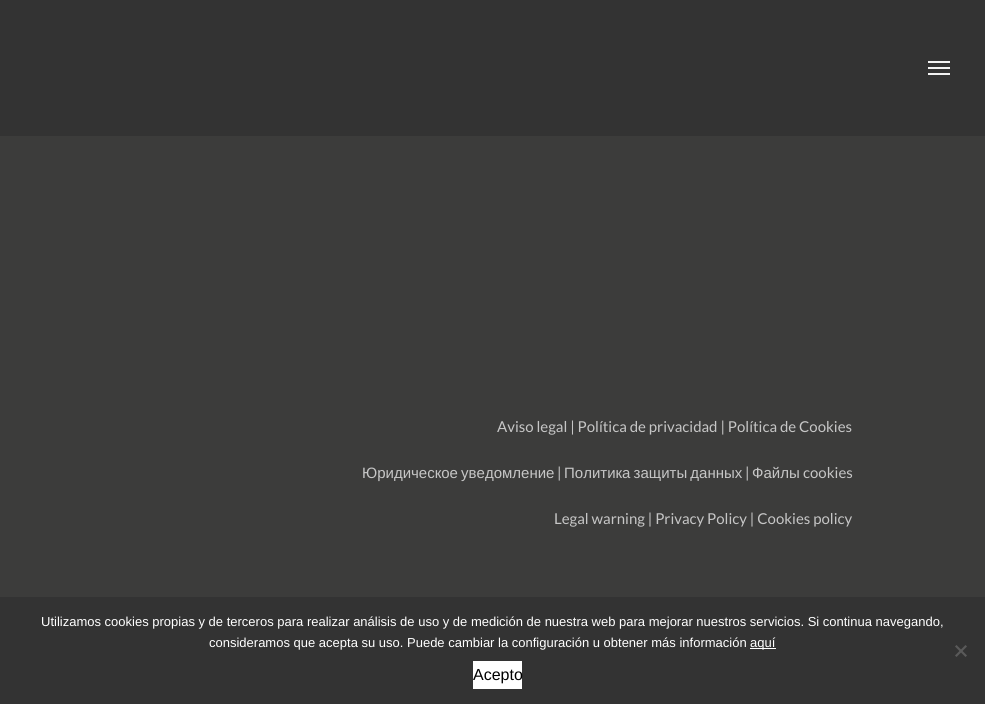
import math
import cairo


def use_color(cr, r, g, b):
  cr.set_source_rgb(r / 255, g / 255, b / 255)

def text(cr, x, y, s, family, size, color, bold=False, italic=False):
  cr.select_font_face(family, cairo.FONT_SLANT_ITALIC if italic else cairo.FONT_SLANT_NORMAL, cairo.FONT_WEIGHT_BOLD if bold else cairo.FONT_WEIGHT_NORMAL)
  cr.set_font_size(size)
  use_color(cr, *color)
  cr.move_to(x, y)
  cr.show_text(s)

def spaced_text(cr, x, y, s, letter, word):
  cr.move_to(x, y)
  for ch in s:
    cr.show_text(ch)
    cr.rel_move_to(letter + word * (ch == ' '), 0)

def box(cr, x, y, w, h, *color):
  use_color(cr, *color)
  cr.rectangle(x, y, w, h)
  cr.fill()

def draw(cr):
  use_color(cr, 60, 60, 59)
  cr.paint()
  box(cr, 0, 0, 985, 136, 51, 51, 51)
  box(cr, 928, 73, 22, 2, 242, 242, 242)
  box(cr, 928, 67, 22, 2, 242, 242, 242)
  box(cr, 928, 61, 22, 2, 242, 242, 242)
  box(cr, 0, 597, 985, 107, 51, 51, 51)
  box(cr, 750, 648, 26, 1, 255, 255, 255)
  use_color(cr, 90, 90, 90)
  cr.new_path()
  cr.move_to(965.5, 645)
  cr.line_to(967, 646.5)
  cr.line_to(956.5, 657)
  cr.line_to(955, 655.5)
  cr.close_path()
  cr.fill()
  cr.new_path()
  cr.move_to(955, 646.5)
  cr.line_to(956.5, 645)
  cr.line_to(967, 655.5)
  cr.line_to(965.5, 657)
  cr.close_path()
  cr.fill()
  box(cr, 473, 661, 49, 28, 255, 255, 255)
  text(cr, 497, 432, "Aviso legal | Política de privacidad | Política de Cookies", "Lato", 15, (198, 198, 198))
  cr.select_font_face("Liberation Sans")
  spaced_text(cr, 362, 478, "Юридическое уведомление", 0, -1)
  text(cr, 557, 478, "|", "Lato", 15, (198, 198, 198))
  cr.select_font_face("Liberation Sans")
  spaced_text(cr, 564, 478, "Политика защиты данных", 0, -1)
  text(cr, 745, 478, "|", "Lato", 15, (198, 198, 198))
  text(cr, 752, 478, "Файлы", "Liberation Sans", 15, (198, 198, 198))
  text(cr, 803, 478, "cookies", "Lato", 15, (198, 198, 198))
  text(cr, 554, 524, "Legal warning | Privacy Policy | Cookies policy", "Lato", 15, (198, 198, 198))
  text(cr, 41, 626, "Utilizamos cookies propias y de terceros para realizar análisis de uso y de medición de nuestra web para mejorar nuestros servicios. Si continua navegando,", "Liberation Sans", 13, (255, 255, 255))
  text(cr, 209, 647, "consideramos que acepta su uso. Puede cambiar la configuración u obtener más información", "Liberation Sans", 13, (255, 255, 255))
  text(cr, 750, 647, "aquí", "Liberation Sans", 13, (255, 255, 255))
  text(cr, 473, 680, "Acepto", "Liberation Sans", 16, (0, 0, 0))


surface = cairo.ImageSurface(cairo.FORMAT_RGB24, 985, 704)
cr = cairo.Context(surface)
options = cairo.FontOptions()
options.set_hint_metrics(cairo.HINT_METRICS_OFF)
options.set_hint_style(cairo.HINT_STYLE_NONE)
cr.set_font_options(options)
cr.set_miter_limit(4)
draw(cr)
surface.write_to_png("out.png")
